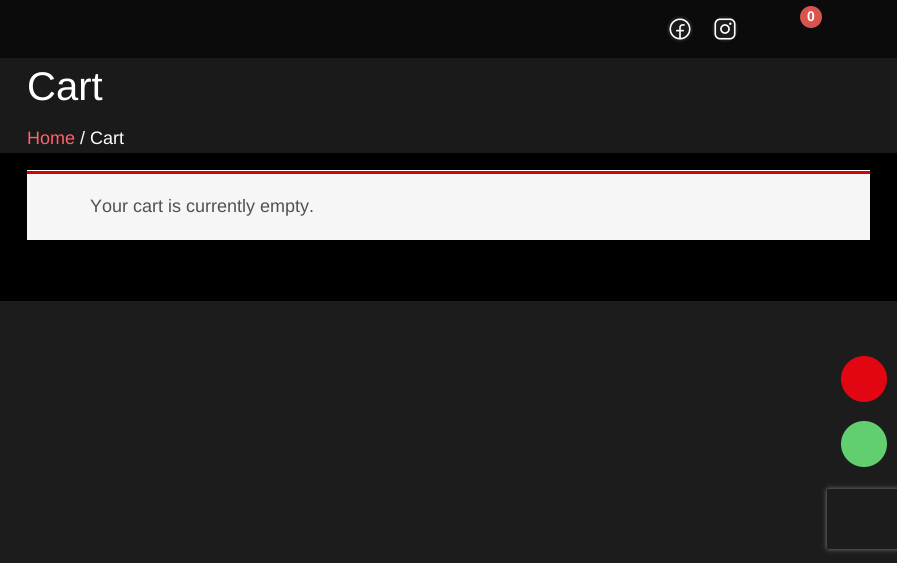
import math
import cairo


def use_color(cr, r, g, b):
  cr.set_source_rgb(r / 255, g / 255, b / 255)

def text(cr, x, y, s, family, size, color, bold=False, italic=False):
  cr.select_font_face(family, cairo.FONT_SLANT_ITALIC if italic else cairo.FONT_SLANT_NORMAL, cairo.FONT_WEIGHT_BOLD if bold else cairo.FONT_WEIGHT_NORMAL)
  cr.set_font_size(size)
  use_color(cr, *color)
  cr.move_to(x, y)
  cr.show_text(s)

def box(cr, x, y, w, h, *color):
  use_color(cr, *color)
  cr.rectangle(x, y, w, h)
  cr.fill()

def round_rect(cr, x, y, w, h, r):
  cr.new_sub_path()
  for i, (u, v) in enumerate([(x + w - r, y + h - r), (x + r, y + h - r), (x + r, y + r), (x + w - r, y + r)]):
    cr.arc(u, v, r, i * math.pi / 2, (i + 1) * math.pi / 2)
  cr.close_path()

def shadow(cr, x, y, w, h, r, blur, alpha):
  cr.push_group_with_content(cairo.CONTENT_ALPHA)
  cr.set_operator(cairo.OPERATOR_SOURCE)
  for i in range(15, -16, -2):
    e = blur * i / 6
    if min(w, h) + 2 * e > 0:
      cr.set_source_rgba(0, 0, 0, alpha * math.erfc((i - 1) / 8.5) / 2)
      round_rect(cr, x - e, y - e, w + 2 * e, h + 2 * e, max(0, min(r + e + blur * .6, min(w, h) / 2 + e)))
      cr.fill()
  cr.mask(cr.pop_group())

def picture(cr, path, x, y, w, h):
  cr.save()
  cr.set_source_surface(cairo.ImageSurface.create_from_png(path), x, y)
  cr.rectangle(x, y, w, h)
  cr.fill()
  cr.restore()

def draw(cr):
  use_color(cr, 0, 0, 0)
  cr.paint()
  box(cr, 0, 0, 897, 58, 11, 11, 11)
  use_color(cr, 27, 27, 27)
  cr.arc(680, 29, 13, 0, 2 * math.pi)
  cr.fill()
  picture(cr, "img_01.png", 669, 18, 22, 22)
  cr.arc(725, 29, 13, 0, 2 * math.pi)
  cr.fill()
  picture(cr, "img_02.png", 714, 18, 22, 22)
  use_color(cr, 217, 83, 79)
  cr.arc(811, 17, 11, 0, 2 * math.pi)
  cr.fill()
  box(cr, 0, 58, 897, 95, 26, 26, 27)
  box(cr, 27, 170, 843, 1, 255, 255, 255)
  box(cr, 27, 174, 843, 66, 247, 246, 247)
  box(cr, 27, 171, 843, 3, 209, 4, 4)
  box(cr, 0, 301, 897, 262, 28, 28, 28)
  use_color(cr, 226, 6, 19)
  cr.arc(864, 379, 23, 0, 2 * math.pi)
  cr.fill()
  use_color(cr, 97, 206, 112)
  cr.arc(864, 444, 23, 0, 2 * math.pi)
  cr.fill()
  cr.save()
  cr.set_fill_rule(cairo.FILL_RULE_EVEN_ODD)
  cr.new_path()
  cr.move_to(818, 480)
  cr.line_to(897, 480)
  cr.line_to(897, 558)
  cr.line_to(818, 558)
  cr.close_path()
  cr.move_to(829, 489)
  cr.line_to(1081, 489)
  cr.curve_to(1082, 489, 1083, 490, 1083, 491)
  cr.line_to(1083, 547)
  cr.curve_to(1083, 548, 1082, 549, 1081, 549)
  cr.line_to(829, 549)
  cr.curve_to(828, 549, 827, 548, 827, 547)
  cr.line_to(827, 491)
  cr.curve_to(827, 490, 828, 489, 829, 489)
  cr.close_path()
  cr.clip()
  use_color(cr, 128, 128, 128)
  shadow(cr, 827, 489, 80, 60, 2, 2.5, 1)
  cr.restore()
  text(cr, 807, 21, "0", "Liberation Sans", 14, (255, 255, 255), bold=True)
  text(cr, 27, 100, "Cart", "Liberation Sans", 40, (255, 255, 255))
  text(cr, 27, 144, "Home", "Liberation Sans", 18, (255, 97, 106))
  text(cr, 80, 144, "/ Cart", "Liberation Sans", 18, (255, 255, 255))
  text(cr, 90, 212, "Your cart is currently empty.", "Liberation Sans", 18, (81, 81, 81))


surface = cairo.ImageSurface(cairo.FORMAT_RGB24, 897, 563)
cr = cairo.Context(surface)
options = cairo.FontOptions()
options.set_hint_metrics(cairo.HINT_METRICS_OFF)
options.set_hint_style(cairo.HINT_STYLE_NONE)
cr.set_font_options(options)
cr.set_miter_limit(4)
draw(cr)
surface.write_to_png("out.png")
